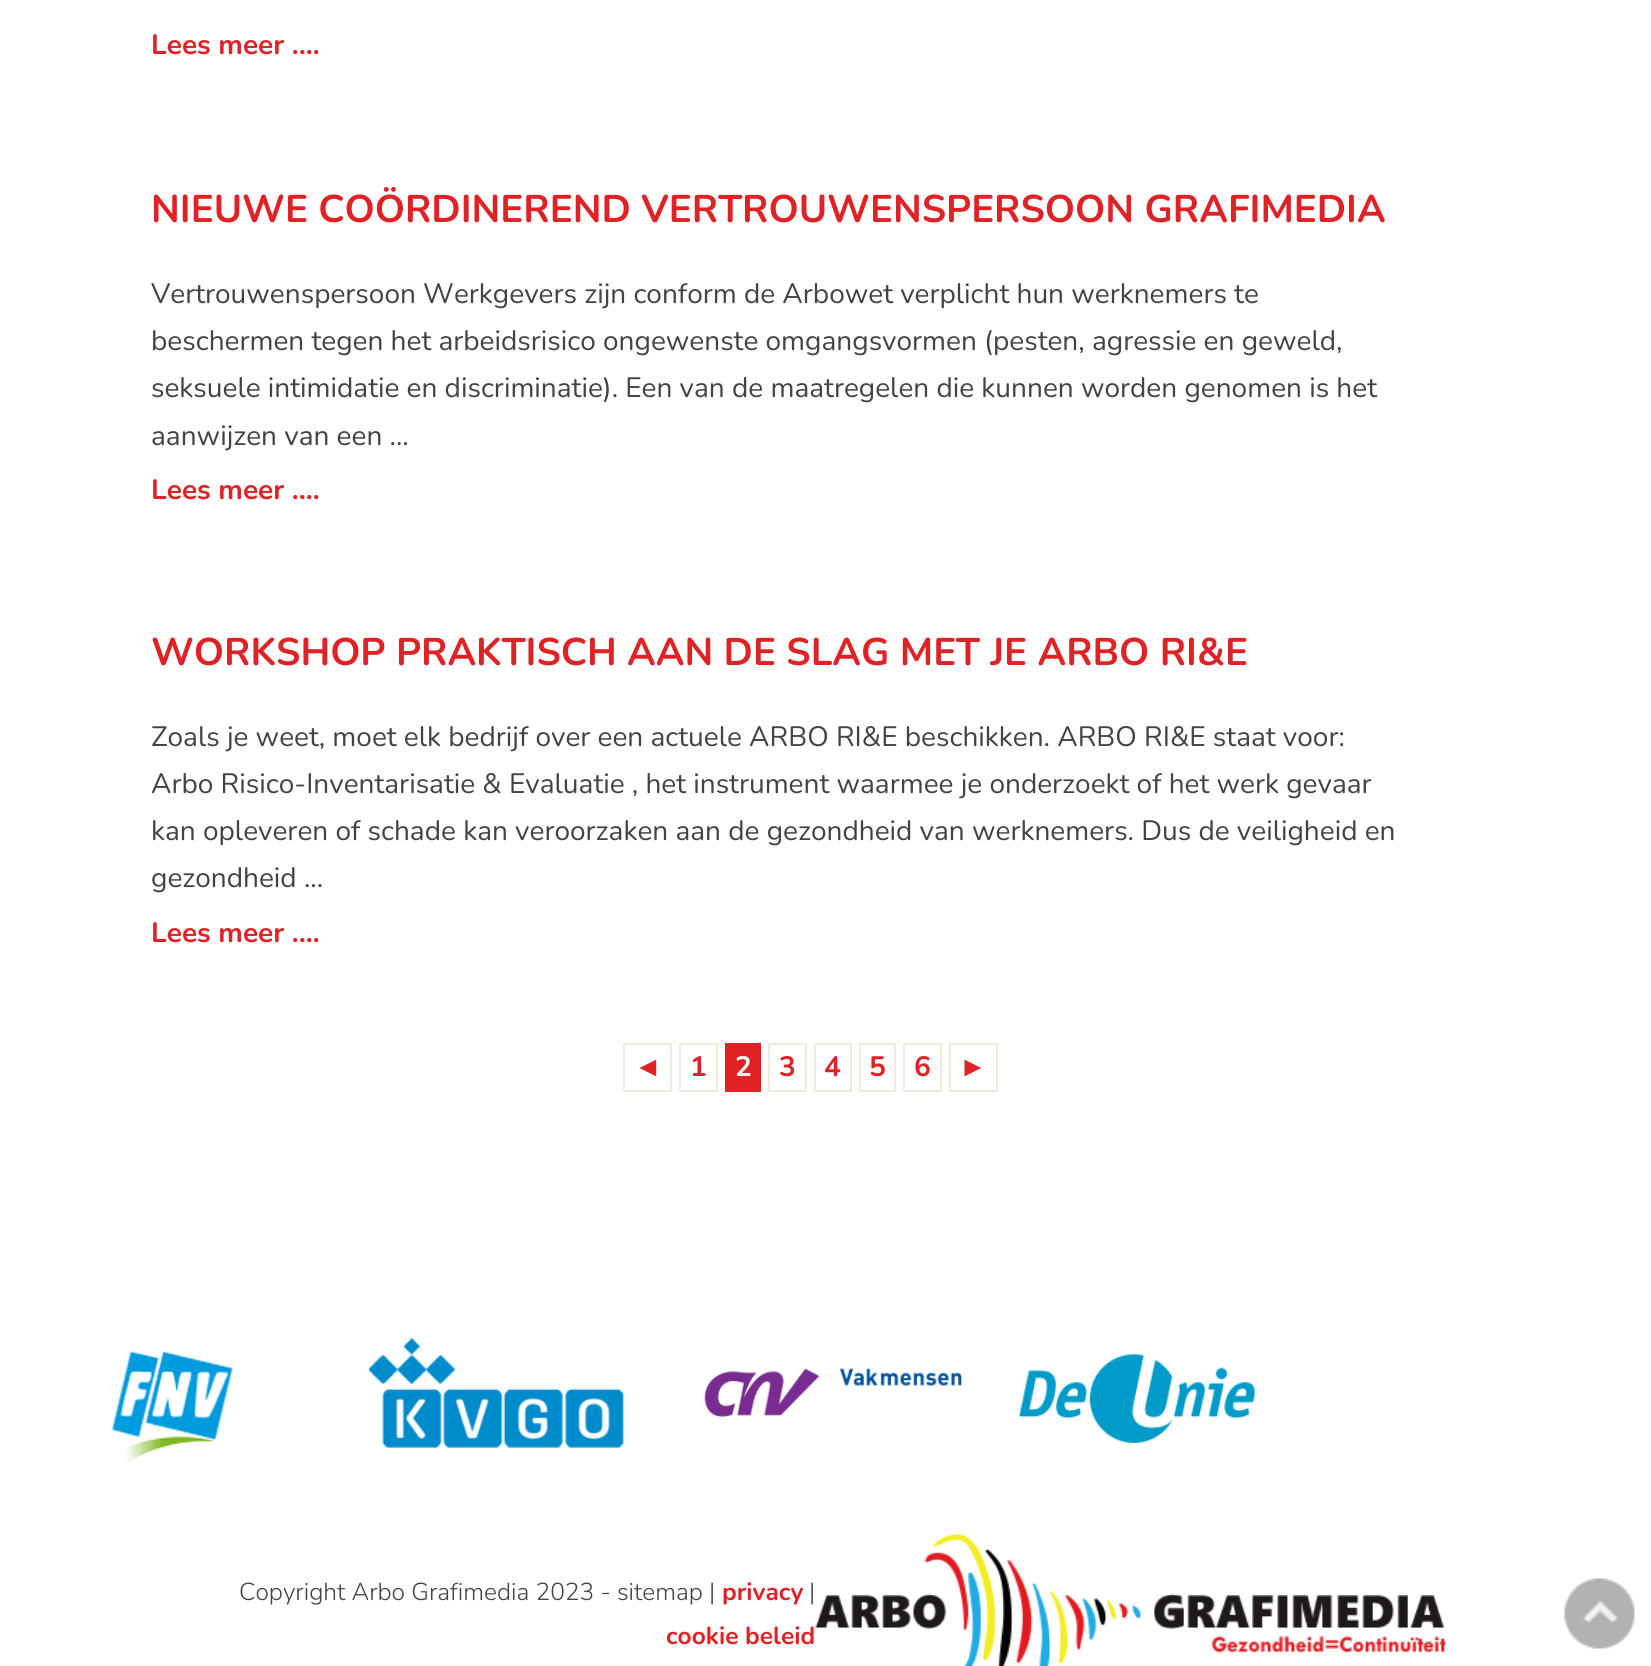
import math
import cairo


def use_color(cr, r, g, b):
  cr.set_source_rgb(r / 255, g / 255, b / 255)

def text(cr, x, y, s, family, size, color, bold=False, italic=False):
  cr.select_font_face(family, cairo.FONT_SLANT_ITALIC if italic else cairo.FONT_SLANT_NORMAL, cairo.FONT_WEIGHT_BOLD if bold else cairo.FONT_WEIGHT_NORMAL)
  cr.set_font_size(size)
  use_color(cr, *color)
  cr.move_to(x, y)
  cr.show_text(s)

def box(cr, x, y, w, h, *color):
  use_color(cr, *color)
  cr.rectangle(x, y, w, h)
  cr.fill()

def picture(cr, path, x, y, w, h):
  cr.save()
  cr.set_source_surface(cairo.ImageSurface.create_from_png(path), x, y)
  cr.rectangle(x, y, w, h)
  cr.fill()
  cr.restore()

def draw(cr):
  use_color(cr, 255, 255, 255)
  cr.paint()
  cr.rectangle(624, 1044, 47, 47)
  use_color(cr, 240, 234, 223)
  cr.stroke()
  cr.rectangle(680, 1044, 37, 47)
  cr.stroke()
  box(cr, 725, 1043, 36, 49, 223, 34, 38)
  cr.rectangle(769, 1044, 37, 47)
  use_color(cr, 240, 234, 223)
  cr.stroke()
  cr.rectangle(815, 1044, 36, 47)
  cr.stroke()
  cr.rectangle(860, 1044, 35, 47)
  cr.stroke()
  cr.rectangle(904, 1044, 37, 47)
  cr.stroke()
  cr.rectangle(950, 1044, 47, 47)
  cr.stroke()
  picture(cr, "img_01.png", 111, 1350, 122, 112)
  picture(cr, "img_02.png", 368, 1338, 256, 110)
  picture(cr, "img_03.png", 704, 1368, 258, 50)
  picture(cr, "img_04.png", 1019, 1354, 236, 89)
  picture(cr, "img_05.png", 815, 1534, 631, 132)
  picture(cr, "img_06.png", 1564, 1578, 71, 71)
  text(cr, 151, 54, "Lees meer ....", "Nunito", 28, (223, 34, 38), bold=True)
  text(cr, 151, 222, "NIEUWE COÖRDINEREND VERTROUWENSPERSOON GRAFIMEDIA", "Nunito", 38.5, (223, 34, 38), bold=True)
  text(cr, 151, 303, "Vertrouwenspersoon Werkgevers zijn conform de Arbowet verplicht hun werknemers te", "Nunito", 28, (67, 67, 67))
  text(cr, 151, 350, "beschermen tegen het arbeidsrisico ongewenste omgangsvormen (pesten, agressie en geweld,", "Nunito", 28, (67, 67, 67))
  text(cr, 151, 397, "seksuele intimidatie en discriminatie). Een van de maatregelen die kunnen worden genomen is het", "Nunito", 28, (67, 67, 67))
  text(cr, 151, 445, "aanwijzen van een ...", "Nunito", 28, (67, 67, 67))
  text(cr, 151, 499, "Lees meer ....", "Nunito", 28, (223, 34, 38), bold=True)
  text(cr, 151, 665, "WORKSHOP PRAKTISCH AAN DE SLAG MET JE ARBO RI&E", "Nunito", 38.5, (223, 34, 38), bold=True)
  text(cr, 151, 746, "Zoals je weet, moet elk bedrijf over een actuele ARBO RI&E beschikken. ARBO RI&E staat voor:", "Nunito", 28, (67, 67, 67))
  text(cr, 151, 793, "Arbo Risico-Inventarisatie & Evaluatie , het instrument waarmee je onderzoekt of het werk gevaar", "Nunito", 28, (67, 67, 67))
  text(cr, 151, 840, "kan opleveren of schade kan veroorzaken aan de gezondheid van werknemers. Dus de veiligheid en", "Nunito", 28, (67, 67, 67))
  text(cr, 151, 887, "gezondheid ...", "Nunito", 28, (67, 67, 67))
  text(cr, 151, 942, "Lees meer ....", "Nunito", 28, (223, 34, 38), bold=True)
  text(cr, 634, 1076, "◄", "Liberation Sans", 28, (223, 34, 38), bold=True)
  text(cr, 690, 1076, "1", "Nunito", 28, (223, 34, 38), bold=True)
  text(cr, 735, 1076, "2", "Nunito", 28, (255, 255, 255), bold=True)
  text(cr, 779, 1076, "3", "Nunito", 28, (223, 34, 38), bold=True)
  text(cr, 824, 1076, "4", "Nunito", 28, (223, 34, 38), bold=True)
  text(cr, 869, 1076, "5", "Nunito", 28, (223, 34, 38), bold=True)
  text(cr, 914, 1076, "6", "Nunito", 28, (223, 34, 38), bold=True)
  text(cr, 959, 1076, "►", "Liberation Sans", 28, (223, 34, 38), bold=True)
  text(cr, 239, 1600, "Copyright Arbo Grafimedia 2023 - sitemap |", "Nunito Light", 24.5, (67, 67, 67))
  text(cr, 722, 1600, "privacy", "Nunito", 24.5, (223, 34, 38), bold=True)
  text(cr, 809, 1600, "|", "Nunito Light", 24.5, (67, 67, 67))
  text(cr, 666, 1644, "cookie beleid", "Nunito", 24.5, (223, 34, 38), bold=True)


surface = cairo.ImageSurface(cairo.FORMAT_RGB24, 1651, 1666)
cr = cairo.Context(surface)
options = cairo.FontOptions()
options.set_hint_metrics(cairo.HINT_METRICS_OFF)
options.set_hint_style(cairo.HINT_STYLE_NONE)
cr.set_font_options(options)
cr.set_miter_limit(4)
draw(cr)
surface.write_to_png("out.png")
